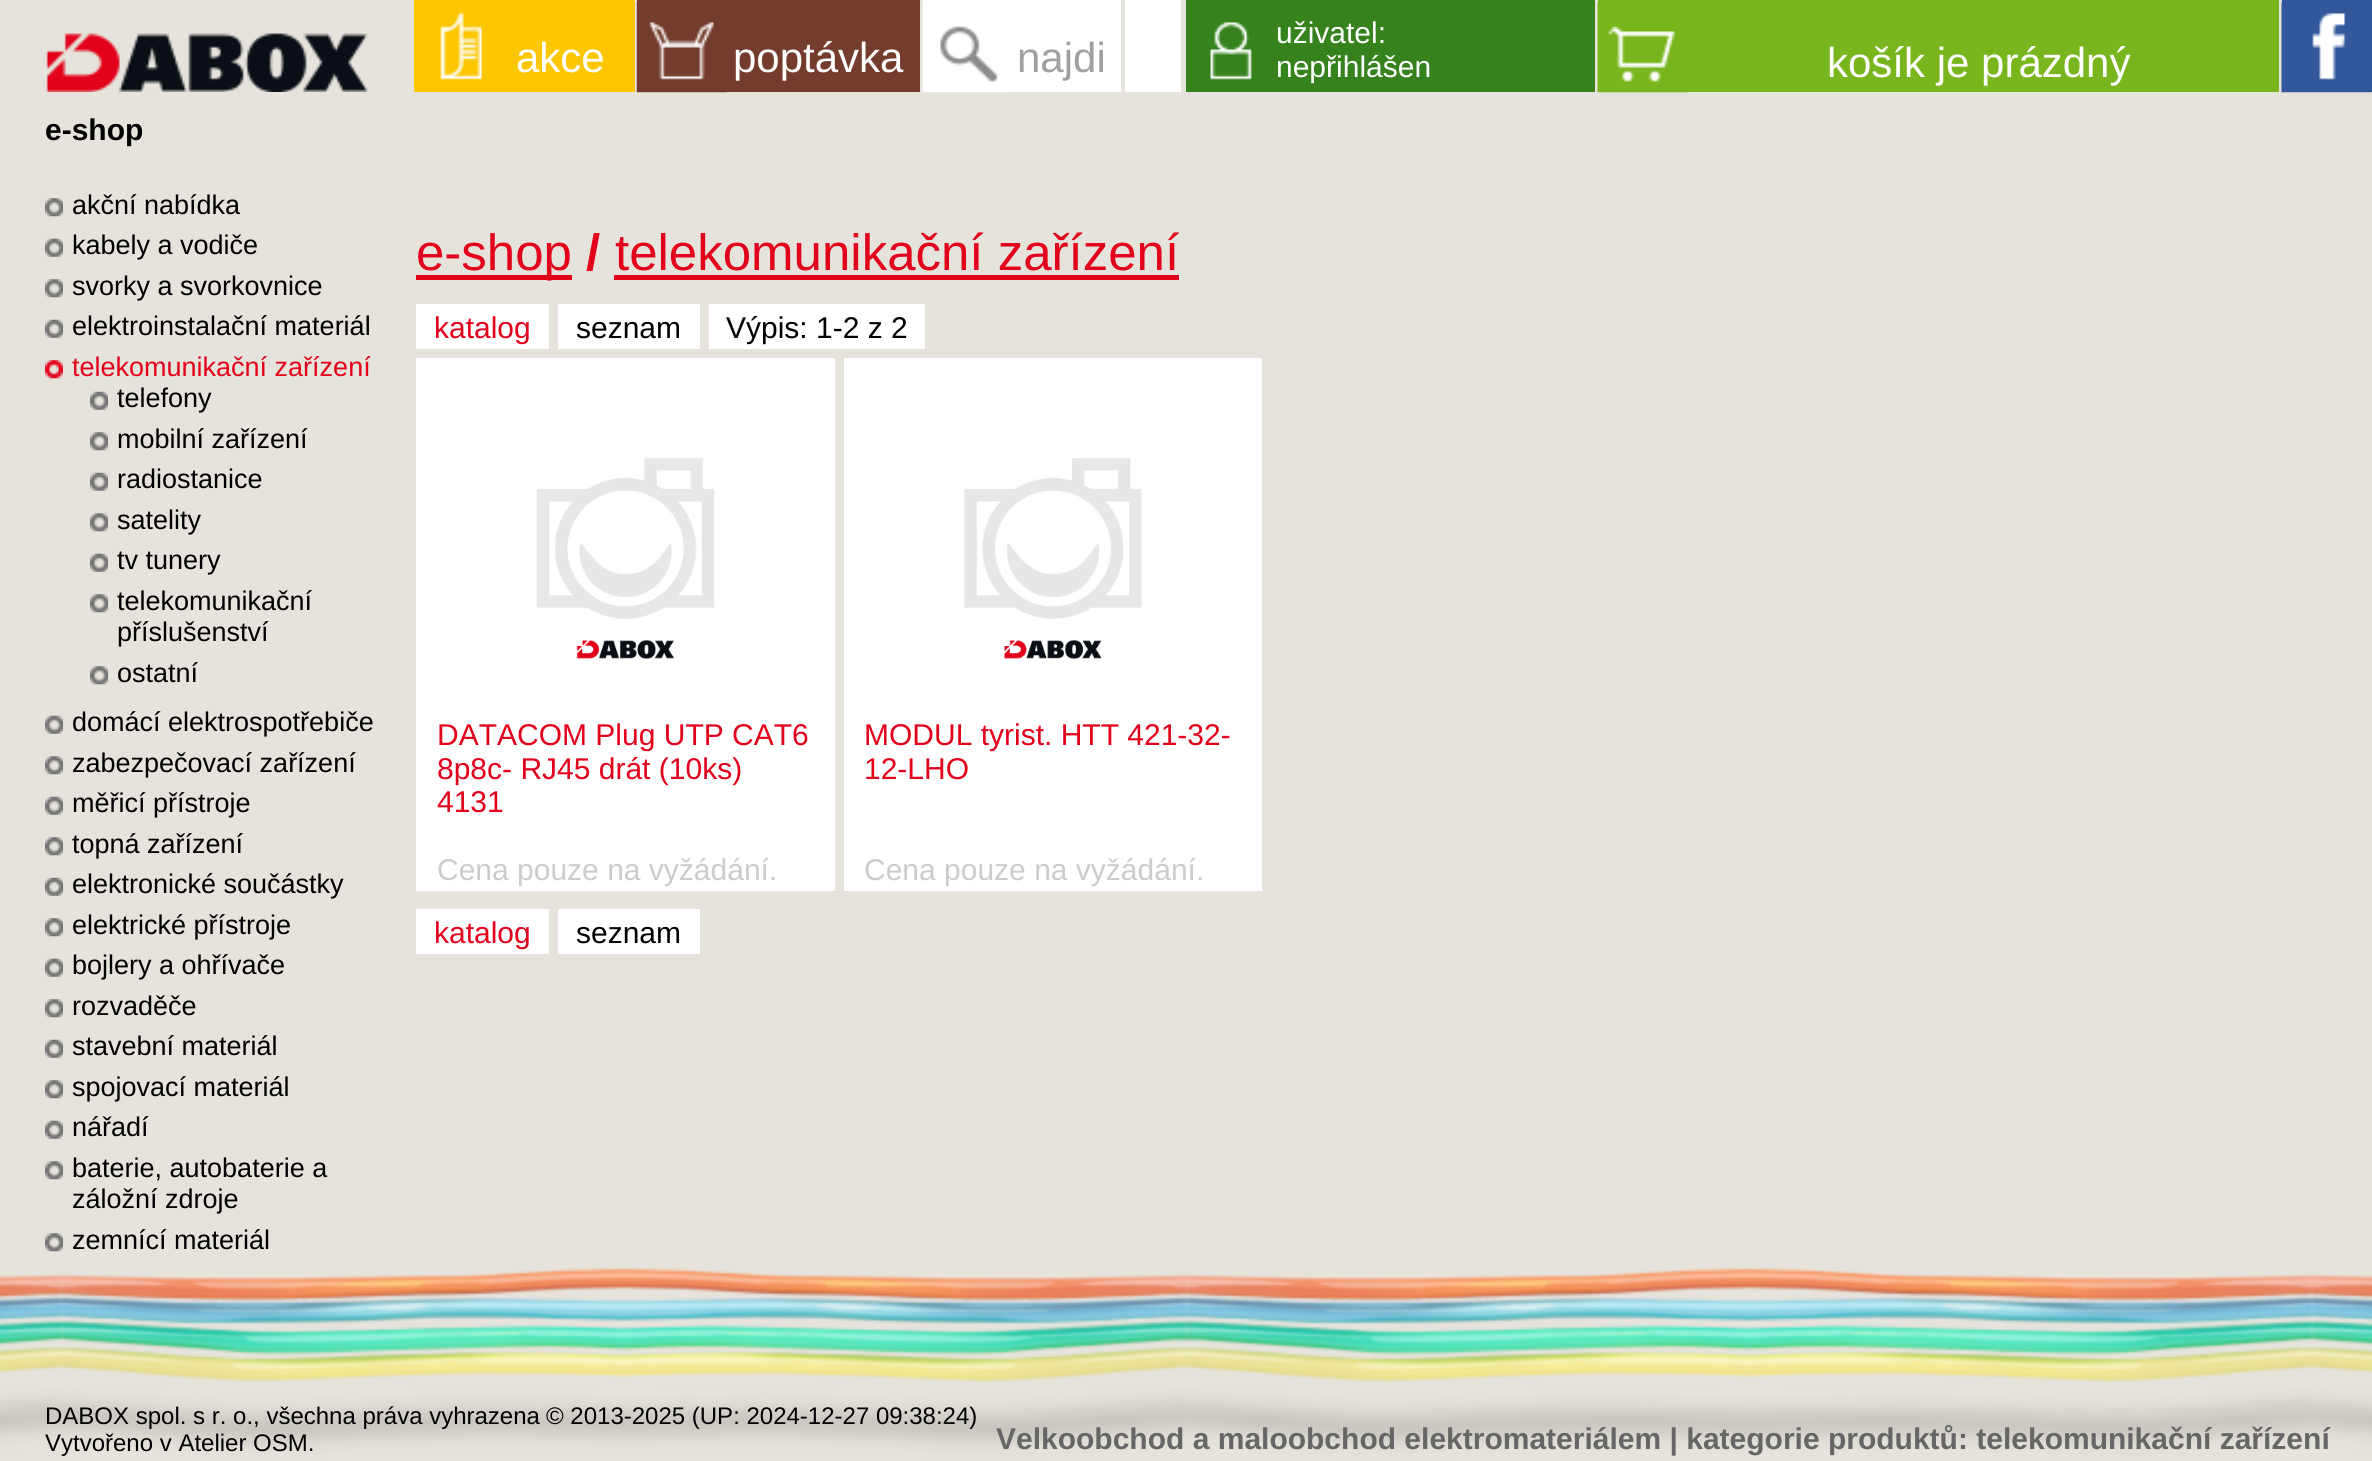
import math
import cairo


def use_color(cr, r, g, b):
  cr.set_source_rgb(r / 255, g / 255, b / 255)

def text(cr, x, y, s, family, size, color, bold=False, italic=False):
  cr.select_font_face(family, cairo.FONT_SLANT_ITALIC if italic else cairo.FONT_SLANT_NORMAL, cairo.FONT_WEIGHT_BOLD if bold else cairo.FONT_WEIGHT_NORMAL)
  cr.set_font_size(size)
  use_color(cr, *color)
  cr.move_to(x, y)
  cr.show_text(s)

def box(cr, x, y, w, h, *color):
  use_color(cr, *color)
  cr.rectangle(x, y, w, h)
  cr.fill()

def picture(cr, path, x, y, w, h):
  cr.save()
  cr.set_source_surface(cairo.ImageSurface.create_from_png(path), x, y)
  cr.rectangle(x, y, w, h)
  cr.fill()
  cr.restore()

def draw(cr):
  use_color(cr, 230, 227, 220)
  cr.paint()
  box(cr, 1125, 0, 56, 92, 255, 255, 255)
  picture(cr, "img_01.png", 46, 33, 322, 59)
  box(cr, 414, 0, 221, 92, 252, 198, 0)
  picture(cr, "img_02.png", 440, 13, 43, 67)
  box(cr, 637, 0, 283, 92, 116, 60, 45)
  picture(cr, "img_03.png", 636, 1, 92, 92)
  box(cr, 923, 0, 198, 92, 255, 255, 255)
  picture(cr, "img_04.png", 922, 2, 91, 91)
  box(cr, 1186, 0, 409, 92, 54, 131, 30)
  picture(cr, "img_05.png", 1210, 22, 42, 58)
  box(cr, 1598, 0, 681, 92, 121, 181, 28)
  picture(cr, "img_06.png", 1597, 1, 91, 92)
  box(cr, 2282, 0, 90, 92, 50, 88, 155)
  picture(cr, "img_07.png", 2281, 1, 91, 92)
  picture(cr, "img_08.png", 45, 198, 18, 19)
  picture(cr, "img_09.png", 45, 238, 18, 19)
  picture(cr, "img_10.png", 45, 279, 18, 19)
  picture(cr, "img_09.png", 45, 319, 18, 19)
  picture(cr, "img_11.png", 45, 360, 18, 19)
  picture(cr, "img_12.png", 90, 391, 18, 19)
  picture(cr, "img_13.png", 90, 432, 18, 19)
  picture(cr, "img_12.png", 90, 472, 18, 19)
  picture(cr, "img_13.png", 90, 513, 18, 19)
  picture(cr, "img_12.png", 90, 553, 18, 19)
  picture(cr, "img_13.png", 90, 594, 18, 19)
  picture(cr, "img_13.png", 90, 666, 18, 19)
  picture(cr, "img_09.png", 45, 715, 18, 19)
  picture(cr, "img_08.png", 45, 756, 18, 19)
  picture(cr, "img_09.png", 45, 796, 18, 19)
  picture(cr, "img_08.png", 45, 837, 18, 19)
  picture(cr, "img_09.png", 45, 877, 18, 19)
  picture(cr, "img_08.png", 45, 918, 18, 19)
  picture(cr, "img_09.png", 45, 958, 18, 19)
  picture(cr, "img_08.png", 45, 999, 18, 19)
  picture(cr, "img_09.png", 45, 1039, 18, 19)
  picture(cr, "img_08.png", 45, 1080, 18, 19)
  picture(cr, "img_09.png", 45, 1120, 18, 19)
  picture(cr, "img_08.png", 45, 1161, 18, 19)
  picture(cr, "img_08.png", 45, 1233, 18, 19)
  box(cr, 416, 275, 156, 5, 226, 0, 26)
  box(cr, 614, 275, 565, 5, 226, 0, 26)
  box(cr, 416, 304, 133, 45, 255, 255, 255)
  box(cr, 558, 304, 142, 45, 255, 255, 255)
  box(cr, 709, 304, 216, 45, 255, 255, 255)
  box(cr, 416, 358, 419, 533, 255, 255, 255)
  picture(cr, "img_14.png", 536, 458, 179, 201)
  box(cr, 844, 358, 418, 533, 255, 255, 255)
  picture(cr, "img_15.png", 964, 458, 178, 201)
  box(cr, 416, 909, 133, 45, 255, 255, 255)
  box(cr, 558, 909, 142, 45, 255, 255, 255)
  picture(cr, "img_16.png", 0, 1268, 2372, 193)
  text(cr, 516, 72, "akce", "Liberation Sans", 42, (255, 255, 255))
  text(cr, 733, 72, "poptávka", "Liberation Sans", 42, (255, 255, 255))
  text(cr, 1017, 72, "najdi", "Liberation Sans", 42, (161, 160, 160))
  text(cr, 1276, 43, "uživatel:", "Liberation Sans", 30, (255, 255, 255))
  text(cr, 1276, 77, "nepřihlášen", "Liberation Sans", 30, (255, 255, 255))
  text(cr, 1827, 77, "košík je prázdný", "Liberation Sans", 42, (255, 255, 255))
  text(cr, 45, 140, "e-shop", "Liberation Sans", 30, (0, 0, 0), bold=True)
  text(cr, 72, 214, "akční nabídka", "Liberation Sans", 27, (0, 0, 0))
  text(cr, 72, 254, "kabely a vodiče", "Liberation Sans", 27, (0, 0, 0))
  text(cr, 72, 295, "svorky a svorkovnice", "Liberation Sans", 27, (0, 0, 0))
  text(cr, 72, 335, "elektroinstalační materiál", "Liberation Sans", 27, (0, 0, 0))
  text(cr, 72, 376, "telekomunikační zařízení", "Liberation Sans", 27, (226, 0, 26))
  text(cr, 117, 407, "telefony", "Liberation Sans", 27, (0, 0, 0))
  text(cr, 117, 448, "mobilní zařízení", "Liberation Sans", 27, (0, 0, 0))
  text(cr, 117, 488, "radiostanice", "Liberation Sans", 27, (0, 0, 0))
  text(cr, 117, 529, "satelity", "Liberation Sans", 27, (0, 0, 0))
  text(cr, 117, 569, "tv tunery", "Liberation Sans", 27, (0, 0, 0))
  text(cr, 117, 610, "telekomunikační", "Liberation Sans", 27, (0, 0, 0))
  text(cr, 117, 641, "příslušenství", "Liberation Sans", 27, (0, 0, 0))
  text(cr, 117, 682, "ostatní", "Liberation Sans", 27, (0, 0, 0))
  text(cr, 72, 731, "domácí elektrospotřebiče", "Liberation Sans", 27, (0, 0, 0))
  text(cr, 72, 772, "zabezpečovací zařízení", "Liberation Sans", 27, (0, 0, 0))
  text(cr, 72, 812, "měřicí přístroje", "Liberation Sans", 27, (0, 0, 0))
  text(cr, 72, 853, "topná zařízení", "Liberation Sans", 27, (0, 0, 0))
  text(cr, 72, 893, "elektronické součástky", "Liberation Sans", 27, (0, 0, 0))
  text(cr, 72, 934, "elektrické přístroje", "Liberation Sans", 27, (0, 0, 0))
  text(cr, 72, 974, "bojlery a ohřívače", "Liberation Sans", 27, (0, 0, 0))
  text(cr, 72, 1015, "rozvaděče", "Liberation Sans", 27, (0, 0, 0))
  text(cr, 72, 1055, "stavební materiál", "Liberation Sans", 27, (0, 0, 0))
  text(cr, 72, 1096, "spojovací materiál", "Liberation Sans", 27, (0, 0, 0))
  text(cr, 72, 1136, "nářadí", "Liberation Sans", 27, (0, 0, 0))
  text(cr, 72, 1177, "baterie, autobaterie a", "Liberation Sans", 27, (0, 0, 0))
  text(cr, 72, 1208, "záložní zdroje", "Liberation Sans", 27, (0, 0, 0))
  text(cr, 72, 1249, "zemnící materiál", "Liberation Sans", 27, (0, 0, 0))
  text(cr, 416, 270, "e-shop", "Liberation Sans", 51, (226, 0, 26))
  text(cr, 586, 270, "/", "Liberation Sans", 51, (226, 0, 26), bold=True)
  text(cr, 615, 270, "telekomunikační zařízení", "Liberation Sans", 51, (226, 0, 26))
  text(cr, 434, 338, "katalog", "Liberation Sans", 30, (226, 0, 26))
  text(cr, 576, 338, "seznam", "Liberation Sans", 30, (0, 0, 0))
  text(cr, 726, 338, "Výpis: 1-2 z 2", "Liberation Sans", 30, (0, 0, 0))
  text(cr, 437, 745, "DATACOM Plug UTP CAT6", "Liberation Sans", 30, (226, 0, 26))
  text(cr, 437, 779, "8p8c- RJ45 drát (10ks)", "Liberation Sans", 30, (226, 0, 26))
  text(cr, 437, 812, "4131", "Liberation Sans", 30, (226, 0, 26))
  text(cr, 437, 880, "Cena pouze na vyžádání.", "Liberation Sans", 30, (204, 204, 204))
  text(cr, 864, 745, "MODUL tyrist. HTT 421-32-", "Liberation Sans", 30, (226, 0, 26))
  text(cr, 864, 779, "12-LHO", "Liberation Sans", 30, (226, 0, 26))
  text(cr, 864, 880, "Cena pouze na vyžádání.", "Liberation Sans", 30, (204, 204, 204))
  text(cr, 434, 943, "katalog", "Liberation Sans", 30, (226, 0, 26))
  text(cr, 576, 943, "seznam", "Liberation Sans", 30, (0, 0, 0))
  text(cr, 996, 1449, "Velkoobchod a maloobchod elektromateriálem | kategorie produktů: telekomunikační zařízení", "Liberation Sans", 30, (102, 102, 102), bold=True)
  text(cr, 45, 1424, "DABOX spol. s r. o., všechna práva vyhrazena", "Liberation Sans", 24, (0, 0, 0))
  text(cr, 546, 1424, "© 2013-2025 (UP: 2024-12-27 09:38:24)", "Liberation Sans", 24, (0, 0, 0))
  text(cr, 45, 1451, "Vytvořeno v Atelier OSM.", "Liberation Sans", 24, (0, 0, 0))


surface = cairo.ImageSurface(cairo.FORMAT_RGB24, 2372, 1461)
cr = cairo.Context(surface)
options = cairo.FontOptions()
options.set_hint_metrics(cairo.HINT_METRICS_OFF)
options.set_hint_style(cairo.HINT_STYLE_NONE)
cr.set_font_options(options)
cr.set_miter_limit(4)
draw(cr)
surface.write_to_png("out.png")
